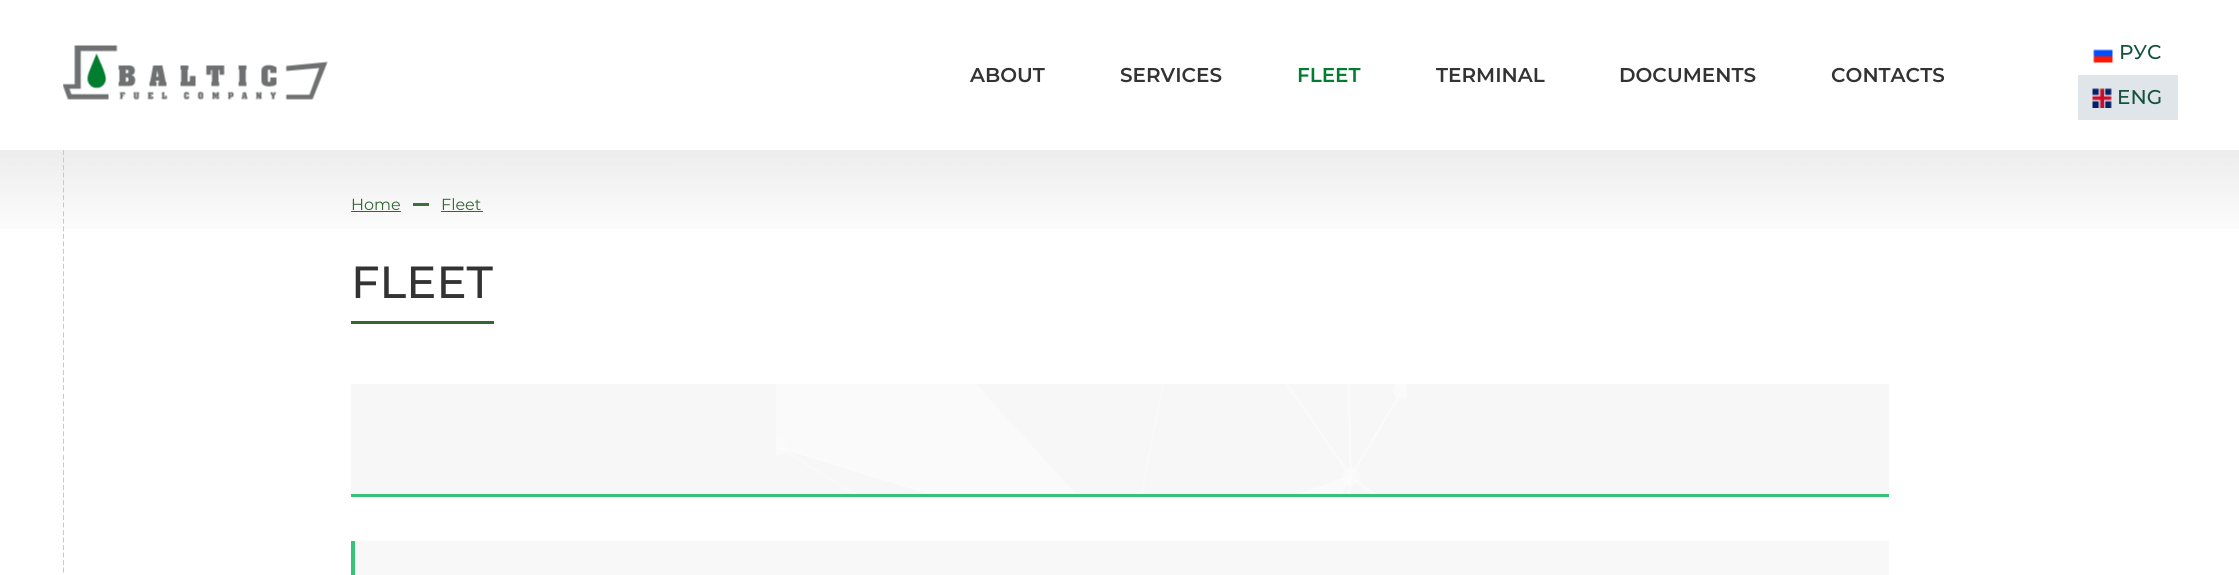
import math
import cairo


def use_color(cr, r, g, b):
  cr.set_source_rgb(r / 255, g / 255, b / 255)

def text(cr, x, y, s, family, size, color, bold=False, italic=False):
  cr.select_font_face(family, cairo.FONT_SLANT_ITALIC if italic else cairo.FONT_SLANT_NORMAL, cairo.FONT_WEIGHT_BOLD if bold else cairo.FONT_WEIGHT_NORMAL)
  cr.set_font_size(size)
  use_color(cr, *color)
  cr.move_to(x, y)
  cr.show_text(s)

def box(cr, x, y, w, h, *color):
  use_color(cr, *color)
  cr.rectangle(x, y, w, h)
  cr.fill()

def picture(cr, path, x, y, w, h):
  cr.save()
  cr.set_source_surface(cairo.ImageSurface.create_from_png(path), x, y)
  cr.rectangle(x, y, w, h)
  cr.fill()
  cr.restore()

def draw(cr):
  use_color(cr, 255, 255, 255)
  cr.paint()
  picture(cr, "img_01.png", 63, 45, 265, 55)
  picture(cr, "img_02.png", 2093, 49, 20, 14)
  box(cr, 2078, 75, 100, 45, 223, 229, 232)
  picture(cr, "img_03.png", 2092, 88, 20, 20)
  picture(cr, "img_04.png", 0, 150, 2239, 79)
  picture(cr, "img_05.png", 63, 150, 1, 423)
  box(cr, 351, 211, 50, 1, 51, 102, 51)
  box(cr, 413, 203, 16, 3, 62, 110, 62)
  box(cr, 441, 211, 42, 1, 51, 102, 51)
  box(cr, 351, 321, 143, 3, 51, 102, 51)
  box(cr, 351, 384, 1538, 110, 247, 247, 247)
  picture(cr, "img_06.png", 776, 384, 631, 110)
  box(cr, 351, 494, 1538, 3, 56, 194, 118)
  box(cr, 355, 541, 1534, 34, 248, 248, 248)
  box(cr, 351, 541, 4, 34, 56, 194, 118)
  text(cr, 970, 82, "ABOUT", "Montserrat SemiBold", 20, (51, 51, 51))
  text(cr, 1120, 82, "SERVICES", "Montserrat SemiBold", 20, (51, 51, 51))
  text(cr, 1297, 82, "FLEET", "Montserrat SemiBold", 20, (0, 125, 47))
  text(cr, 1436, 82, "TERMINAL", "Montserrat SemiBold", 20, (51, 51, 51))
  text(cr, 1619, 82, "DOCUMENTS", "Montserrat SemiBold", 20, (51, 51, 51))
  text(cr, 1831, 82, "CONTACTS", "Montserrat SemiBold", 20, (51, 51, 51))
  text(cr, 2119, 59, "РУС", "Montserrat Medium", 20, (20, 82, 62))
  text(cr, 2117, 104, "ENG", "Montserrat Medium", 20, (20, 82, 62))
  text(cr, 351, 210, "Home", "Montserrat", 16, (51, 102, 51))
  text(cr, 441, 210, "Fleet", "Montserrat", 16, (51, 102, 51))
  text(cr, 351, 298, "FLEET", "Montserrat Medium", 45, (51, 51, 51))


surface = cairo.ImageSurface(cairo.FORMAT_RGB24, 2239, 575)
cr = cairo.Context(surface)
options = cairo.FontOptions()
options.set_hint_metrics(cairo.HINT_METRICS_OFF)
options.set_hint_style(cairo.HINT_STYLE_NONE)
cr.set_font_options(options)
cr.set_miter_limit(4)
draw(cr)
surface.write_to_png("out.png")
